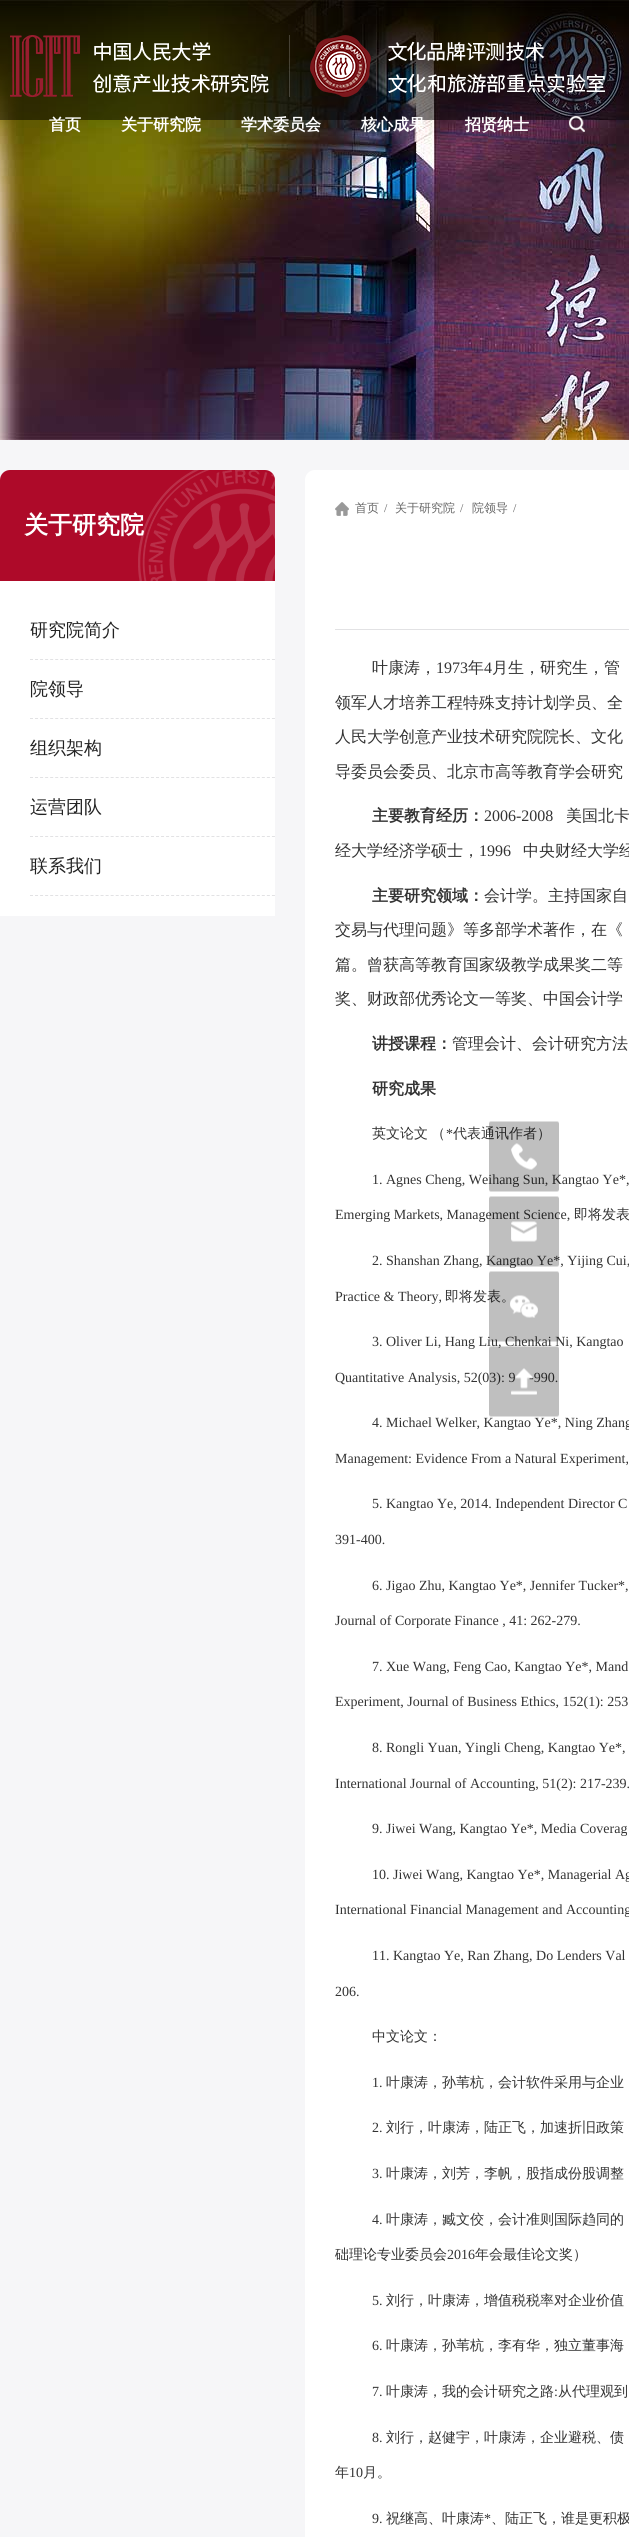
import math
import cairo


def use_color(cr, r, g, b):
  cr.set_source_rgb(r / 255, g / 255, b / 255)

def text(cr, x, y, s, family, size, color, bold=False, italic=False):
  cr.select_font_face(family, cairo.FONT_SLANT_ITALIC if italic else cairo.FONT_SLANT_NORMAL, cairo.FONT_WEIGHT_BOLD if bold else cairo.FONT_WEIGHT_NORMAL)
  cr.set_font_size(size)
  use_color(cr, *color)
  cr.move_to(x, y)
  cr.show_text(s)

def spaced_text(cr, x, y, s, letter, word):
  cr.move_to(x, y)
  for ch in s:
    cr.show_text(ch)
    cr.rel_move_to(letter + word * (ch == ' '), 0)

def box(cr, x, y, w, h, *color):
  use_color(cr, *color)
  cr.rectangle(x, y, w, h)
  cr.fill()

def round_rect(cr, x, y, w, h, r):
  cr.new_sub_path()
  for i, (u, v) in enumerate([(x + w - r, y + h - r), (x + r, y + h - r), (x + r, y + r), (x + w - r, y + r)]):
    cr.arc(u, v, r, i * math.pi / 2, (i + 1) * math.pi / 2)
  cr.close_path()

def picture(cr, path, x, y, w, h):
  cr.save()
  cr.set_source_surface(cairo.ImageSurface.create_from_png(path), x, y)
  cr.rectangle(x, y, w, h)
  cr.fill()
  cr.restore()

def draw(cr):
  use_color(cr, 255, 255, 255)
  cr.paint()
  picture(cr, "img_03.png", 0, 0, 629, 440)
  cr.set_source_rgba(0, 0, 0, 0.5)
  cr.rectangle(0, 0, 629, 120)
  cr.fill()
  picture(cr, "img_01.png", 10, 35, 595, 62)
  picture(cr, "img_02.png", 569, 116, 16, 16)
  box(cr, 0, 440, 629, 2097, 246, 246, 248)
  use_color(cr, 174, 10, 41)
  cr.new_path()
  cr.move_to(10, 470)
  cr.line_to(265, 470)
  cr.curve_to(270.5, 470, 275, 474.5, 275, 480)
  cr.line_to(275, 581)
  cr.line_to(0, 581)
  cr.line_to(0, 480)
  cr.curve_to(0, 474.5, 4.5, 470, 10, 470)
  cr.close_path()
  cr.fill()
  picture(cr, "img_04.png", 138, 470, 137, 111)
  box(cr, 0, 581, 275, 335, 255, 255, 255)
  cr.new_path()
  cr.move_to(30, 659.5)
  cr.line_to(275, 659.5)
  use_color(cr, 226, 226, 228)
  cr.set_line_width(1)
  cr.set_dash([3, 2.04])
  cr.stroke()
  cr.new_path()
  cr.move_to(30, 718.5)
  cr.line_to(275, 718.5)
  cr.stroke()
  cr.new_path()
  cr.move_to(30, 777.5)
  cr.line_to(275, 777.5)
  cr.stroke()
  cr.new_path()
  cr.move_to(30, 836.5)
  cr.line_to(275, 836.5)
  cr.stroke()
  cr.new_path()
  cr.move_to(30, 895.5)
  cr.line_to(275, 895.5)
  cr.stroke()
  use_color(cr, 255, 255, 255)
  round_rect(cr, 305, 470, 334, 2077, 10)
  cr.fill()
  picture(cr, "img_05.png", 335, 502, 14, 14)
  box(cr, 335, 629, 294, 1, 226, 226, 228)
  text(cr, 49, 130, "首页", "WenQuanYi Zen Hei", 16, (255, 255, 255), bold=True)
  text(cr, 121, 130, "关于研究院", "WenQuanYi Zen Hei", 16, (255, 255, 255), bold=True)
  text(cr, 241, 130, "学术委员会", "WenQuanYi Zen Hei", 16, (255, 255, 255), bold=True)
  text(cr, 361, 130, "核心成果", "WenQuanYi Zen Hei", 16, (255, 255, 255), bold=True)
  text(cr, 465, 130, "招贤纳士", "WenQuanYi Zen Hei", 16, (255, 255, 255), bold=True)
  text(cr, 24, 533, "关于研究院", "WenQuanYi Zen Hei", 24, (255, 255, 255), bold=True)
  text(cr, 30, 636, "研究院简介", "WenQuanYi Zen Hei Medium", 18, (34, 34, 34))
  text(cr, 30, 695, "院领导", "WenQuanYi Zen Hei Medium", 18, (34, 34, 34))
  text(cr, 30, 754, "组织架构", "WenQuanYi Zen Hei Medium", 18, (34, 34, 34))
  text(cr, 30, 813, "运营团队", "WenQuanYi Zen Hei Medium", 18, (34, 34, 34))
  text(cr, 30, 872, "联系我们", "WenQuanYi Zen Hei Medium", 18, (34, 34, 34))
  text(cr, 355, 512, "首页", "WenQuanYi Zen Hei Medium", 12, (102, 102, 102))
  text(cr, 384, 512, "/", "Liberation Serif", 12, (102, 102, 102))
  text(cr, 395, 512, "关于研究院", "WenQuanYi Zen Hei Medium", 12, (102, 102, 102))
  text(cr, 460, 512, "/", "Liberation Serif", 12, (102, 102, 102))
  text(cr, 472, 512, "院领导", "WenQuanYi Zen Hei Medium", 12, (102, 102, 102))
  text(cr, 513, 512, "/", "Liberation Serif", 12, (102, 102, 102))
  text(cr, 372, 673, "叶康涛，", "WenQuanYi Zen Hei Medium", 16, (51, 51, 51))
  text(cr, 436, 673, "1973", "Liberation Serif", 16, (51, 51, 51))
  text(cr, 468, 673, "年", "WenQuanYi Zen Hei Medium", 16, (51, 51, 51))
  text(cr, 484, 673, "4", "Liberation Serif", 16, (51, 51, 51))
  text(cr, 492, 673, "月生，研究生，管", "WenQuanYi Zen Hei Medium", 16, (51, 51, 51))
  text(cr, 335, 708, "领军人才培养工程特殊支持计划学员、全", "WenQuanYi Zen Hei Medium", 16, (51, 51, 51))
  text(cr, 335, 742, "人民大学创意产业技术研究院院长、文化", "WenQuanYi Zen Hei Medium", 16, (51, 51, 51))
  text(cr, 335, 777, "导委员会委员、北京市高等教育学会研究", "WenQuanYi Zen Hei Medium", 16, (51, 51, 51))
  text(cr, 372, 821, "主要教育经历：", "WenQuanYi Zen Hei", 16, (51, 51, 51), bold=True)
  text(cr, 484, 821, "2006-2008", "Liberation Serif", 16, (51, 51, 51))
  text(cr, 566, 821, "美国北卡", "WenQuanYi Zen Hei Medium", 16, (51, 51, 51))
  text(cr, 335, 856, "经大学经济学硕士，", "WenQuanYi Zen Hei Medium", 16, (51, 51, 51))
  text(cr, 479, 856, "1996", "Liberation Serif", 16, (51, 51, 51))
  text(cr, 523, 856, "中央财经大学经", "WenQuanYi Zen Hei Medium", 16, (51, 51, 51))
  text(cr, 372, 901, "主要研究领域：", "WenQuanYi Zen Hei", 16, (51, 51, 51), bold=True)
  text(cr, 484, 901, "会计学。主持国家自", "WenQuanYi Zen Hei Medium", 16, (51, 51, 51))
  text(cr, 335, 935, "交易与代理问题》等多部学术著作，在《", "WenQuanYi Zen Hei Medium", 16, (51, 51, 51))
  text(cr, 335, 970, "篇。曾获高等教育国家级教学成果奖二等", "WenQuanYi Zen Hei Medium", 16, (51, 51, 51))
  text(cr, 335, 1004, "奖、财政部优秀论文一等奖、中国会计学", "WenQuanYi Zen Hei Medium", 16, (51, 51, 51))
  text(cr, 372, 1049, "讲授课程：", "WenQuanYi Zen Hei", 16, (51, 51, 51), bold=True)
  text(cr, 452, 1049, "管理会计、会计研究方法", "WenQuanYi Zen Hei Medium", 16, (51, 51, 51))
  text(cr, 372, 1094, "研究成果", "WenQuanYi Zen Hei", 16, (51, 51, 51), bold=True)
  cr.select_font_face("WenQuanYi Zen Hei Medium")
  cr.set_font_size(14)
  spaced_text(cr, 372, 1138, "英文论文 （", 0, -1)
  text(cr, 446, 1138, "*", "Liberation Serif", 14, (51, 51, 51))
  text(cr, 453, 1138, "代表通讯作者）", "WenQuanYi Zen Hei Medium", 14, (51, 51, 51))
  text(cr, 372, 1184, "1. Agnes Cheng, Weihang Sun, Kangtao Ye*,", "Liberation Serif", 14, (51, 51, 51))
  text(cr, 335, 1219, "Emerging Markets, Management Science,", "Liberation Serif", 14, (51, 51, 51))
  text(cr, 574, 1219, "即将发表", "WenQuanYi Zen Hei Medium", 14, (51, 51, 51))
  text(cr, 372, 1265, "2. Shanshan Zhang, Kangtao Ye*, Yijing Cui,", "Liberation Serif", 14, (51, 51, 51))
  text(cr, 335, 1301, "Practice & Theory,", "Liberation Serif", 14, (51, 51, 51))
  text(cr, 445, 1301, "即将发表。", "WenQuanYi Zen Hei Medium", 14, (51, 51, 51))
  text(cr, 372, 1346, "3. Oliver Li, Hang Liu, Chenkai Ni, Kangtao", "Liberation Serif", 14, (51, 51, 51))
  text(cr, 335, 1382, "Quantitative Analysis, 52(03): 9", "Liberation Serif", 14, (51, 51, 51))
  text(cr, 529, 1382, "-990.", "Liberation Serif", 14, (51, 51, 51))
  text(cr, 372, 1427, "4. Michael Welker, Kangtao Ye*, Ning Zhang", "Liberation Serif", 14, (51, 51, 51))
  text(cr, 335, 1463, "Management: Evidence From a Natural Experiment,", "Liberation Serif", 14, (51, 51, 51))
  text(cr, 372, 1508, "5. Kangtao Ye, 2014. Independent Director C", "Liberation Serif", 14, (51, 51, 51))
  text(cr, 335, 1544, "391-400.", "Liberation Serif", 14, (51, 51, 51))
  text(cr, 372, 1590, "6. Jigao Zhu, Kangtao Ye*, Jennifer Tucker*,", "Liberation Serif", 14, (51, 51, 51))
  text(cr, 335, 1625, "Journal of Corporate Finance , 41: 262-279.", "Liberation Serif", 14, (51, 51, 51))
  text(cr, 372, 1671, "7. Xue Wang, Feng Cao, Kangtao Ye*, Mand", "Liberation Serif", 14, (51, 51, 51))
  text(cr, 335, 1706, "Experiment, Journal of Business Ethics, 152(1): 253", "Liberation Serif", 14, (51, 51, 51))
  text(cr, 372, 1752, "8. Rongli Yuan, Yingli Cheng, Kangtao Ye*,", "Liberation Serif", 14, (51, 51, 51))
  text(cr, 335, 1788, "International Journal of Accounting, 51(2): 217-239.", "Liberation Serif", 14, (51, 51, 51))
  text(cr, 372, 1833, "9. Jiwei Wang, Kangtao Ye*, Media Coverag", "Liberation Serif", 14, (51, 51, 51))
  text(cr, 372, 1879, "10. Jiwei Wang, Kangtao Ye*, Managerial Ag", "Liberation Serif", 14, (51, 51, 51))
  text(cr, 335, 1914, "International Financial Management and Accounting", "Liberation Serif", 14, (51, 51, 51))
  text(cr, 372, 1960, "11. Kangtao Ye, Ran Zhang, Do Lenders Val", "Liberation Serif", 14, (51, 51, 51))
  text(cr, 335, 1996, "206.", "Liberation Serif", 14, (51, 51, 51))
  text(cr, 372, 2041, "中文论文：", "WenQuanYi Zen Hei Medium", 14, (51, 51, 51))
  text(cr, 372, 2087, "1.", "Liberation Serif", 14, (51, 51, 51))
  text(cr, 386, 2087, "叶康涛，孙苇杭，会计软件采用与企业", "WenQuanYi Zen Hei Medium", 14, (51, 51, 51))
  text(cr, 372, 2132, "2.", "Liberation Serif", 14, (51, 51, 51))
  text(cr, 386, 2132, "刘行，叶康涛，陆正飞，加速折旧政策", "WenQuanYi Zen Hei Medium", 14, (51, 51, 51))
  text(cr, 372, 2178, "3.", "Liberation Serif", 14, (51, 51, 51))
  text(cr, 386, 2178, "叶康涛，刘芳，李帆，股指成份股调整", "WenQuanYi Zen Hei Medium", 14, (51, 51, 51))
  text(cr, 372, 2224, "4.", "Liberation Serif", 14, (51, 51, 51))
  text(cr, 386, 2224, "叶康涛，臧文佼，会计准则国际趋同的", "WenQuanYi Zen Hei Medium", 14, (51, 51, 51))
  text(cr, 335, 2259, "础理论专业委员会", "WenQuanYi Zen Hei Medium", 14, (51, 51, 51))
  text(cr, 447, 2259, "2016", "Liberation Serif", 14, (51, 51, 51))
  text(cr, 475, 2259, "年会最佳论文奖）", "WenQuanYi Zen Hei Medium", 14, (51, 51, 51))
  text(cr, 372, 2305, "5.", "Liberation Serif", 14, (51, 51, 51))
  text(cr, 386, 2305, "刘行，叶康涛，增值税税率对企业价值", "WenQuanYi Zen Hei Medium", 14, (51, 51, 51))
  text(cr, 372, 2350, "6.", "Liberation Serif", 14, (51, 51, 51))
  text(cr, 386, 2350, "叶康涛，孙苇杭，李有华，独立董事海", "WenQuanYi Zen Hei Medium", 14, (51, 51, 51))
  text(cr, 372, 2396, "7.", "Liberation Serif", 14, (51, 51, 51))
  text(cr, 386, 2396, "叶康涛，我的会计研究之路", "WenQuanYi Zen Hei Medium", 14, (51, 51, 51))
  text(cr, 554, 2396, ":", "Liberation Serif", 14, (51, 51, 51))
  text(cr, 558, 2396, "从代理观到", "WenQuanYi Zen Hei Medium", 14, (51, 51, 51))
  text(cr, 372, 2442, "8.", "Liberation Serif", 14, (51, 51, 51))
  text(cr, 386, 2442, "刘行，赵健宇，叶康涛，企业避税、债", "WenQuanYi Zen Hei Medium", 14, (51, 51, 51))
  text(cr, 335, 2477, "年", "WenQuanYi Zen Hei Medium", 14, (51, 51, 51))
  text(cr, 349, 2477, "10", "Liberation Serif", 14, (51, 51, 51))
  text(cr, 363, 2477, "月。", "WenQuanYi Zen Hei Medium", 14, (51, 51, 51))
  text(cr, 372, 2523, "9.", "Liberation Serif", 14, (51, 51, 51))
  text(cr, 386, 2523, "祝继高、叶康涛", "WenQuanYi Zen Hei Medium", 14, (51, 51, 51))
  text(cr, 484, 2523, "*", "Liberation Serif", 14, (51, 51, 51))
  text(cr, 491, 2523, "、陆正飞，谁是更积极", "WenQuanYi Zen Hei Medium", 14, (51, 51, 51))
  picture(cr, "img_06.png", 489, 1121, 70, 71)
  picture(cr, "img_07.png", 489, 1196, 70, 71)
  picture(cr, "img_08.png", 489, 1271, 70, 71)
  picture(cr, "img_09.png", 489, 1346, 70, 71)


surface = cairo.ImageSurface(cairo.FORMAT_RGB24, 629, 2537)
cr = cairo.Context(surface)
options = cairo.FontOptions()
options.set_hint_metrics(cairo.HINT_METRICS_OFF)
options.set_hint_style(cairo.HINT_STYLE_NONE)
cr.set_font_options(options)
cr.set_miter_limit(4)
draw(cr)
surface.write_to_png("out.png")
